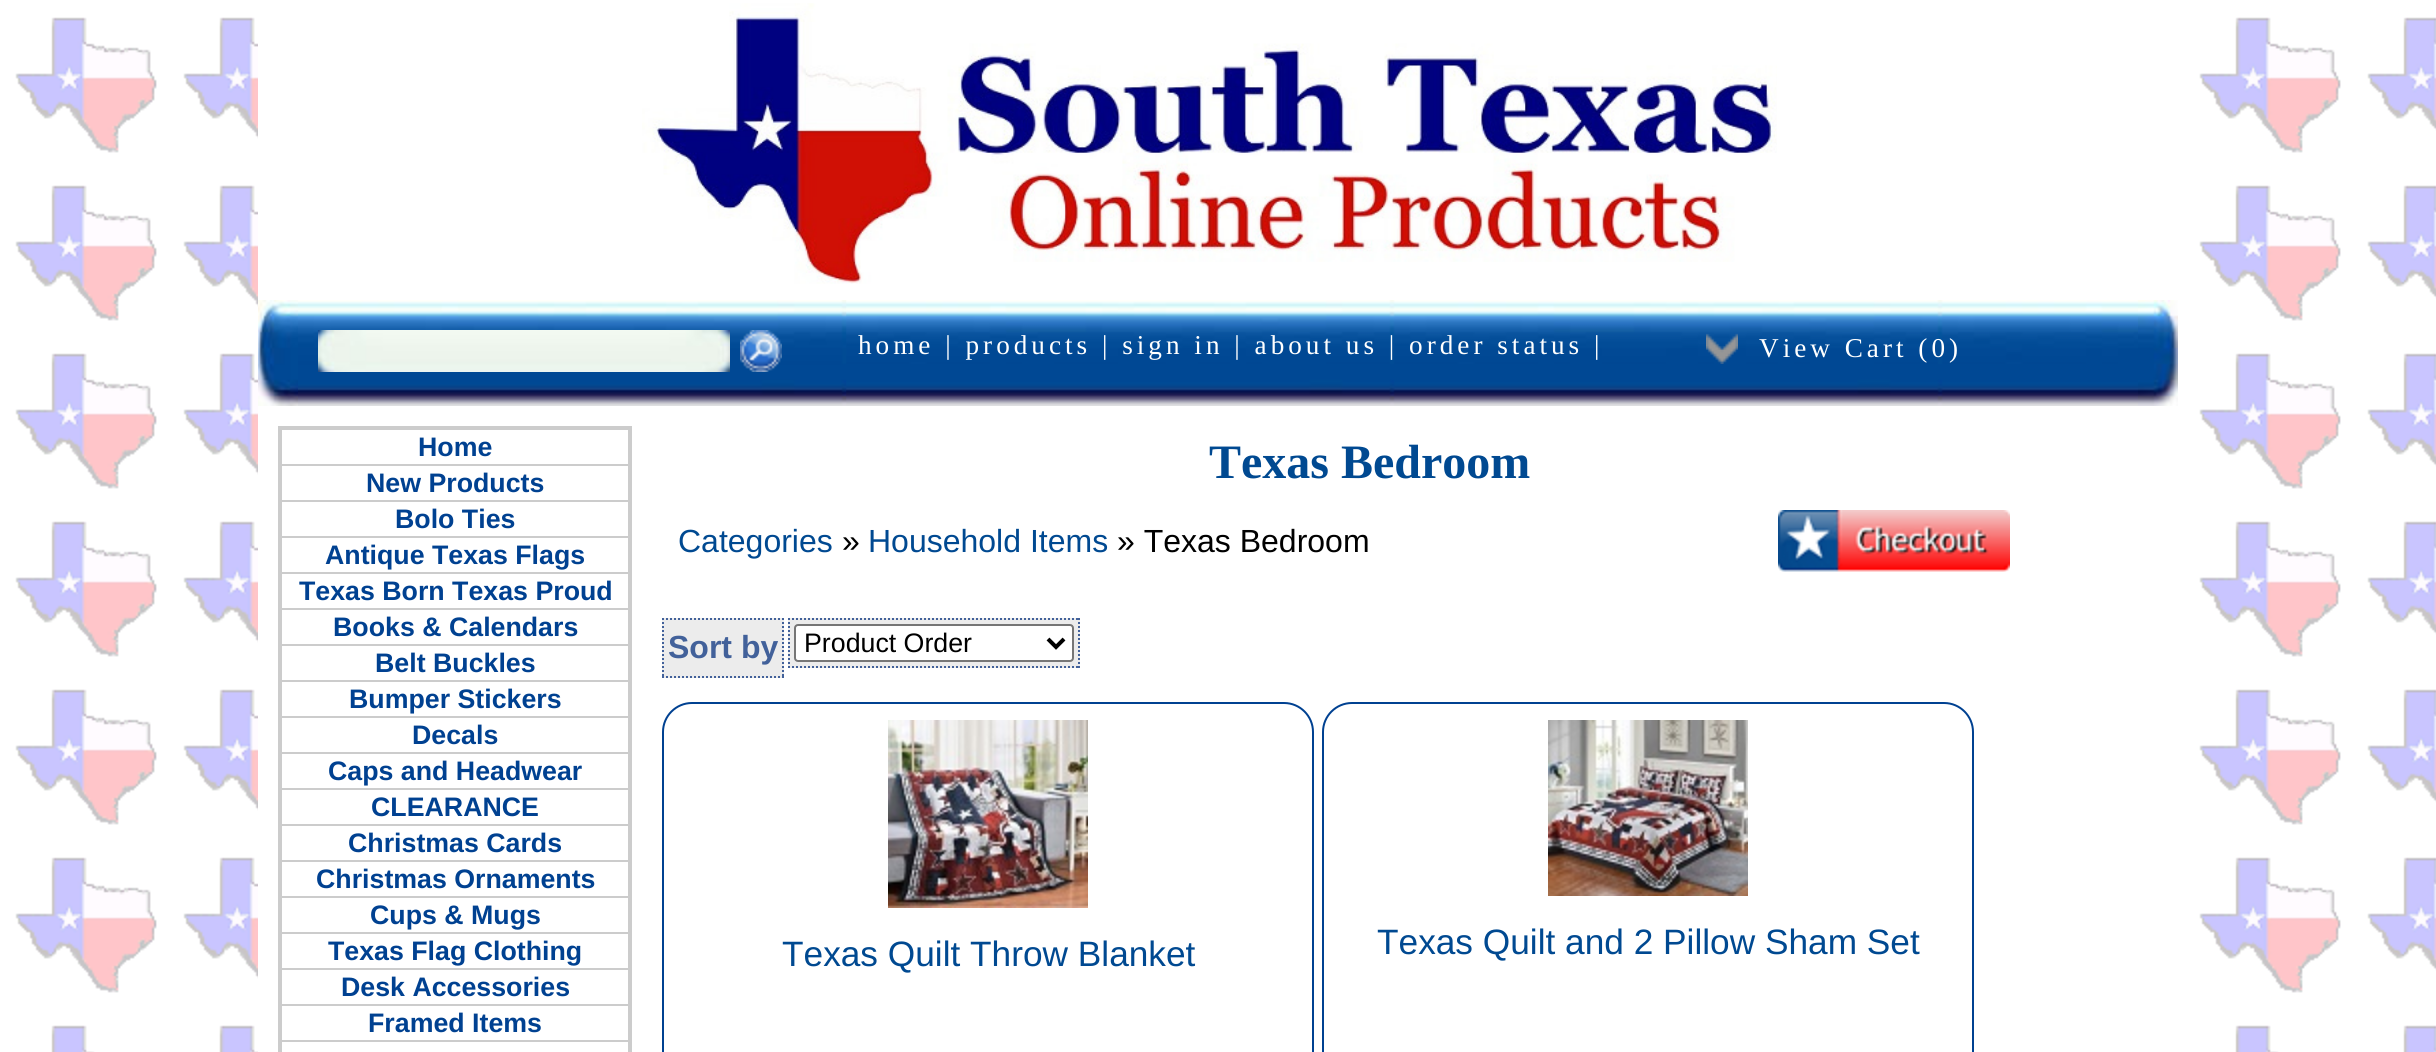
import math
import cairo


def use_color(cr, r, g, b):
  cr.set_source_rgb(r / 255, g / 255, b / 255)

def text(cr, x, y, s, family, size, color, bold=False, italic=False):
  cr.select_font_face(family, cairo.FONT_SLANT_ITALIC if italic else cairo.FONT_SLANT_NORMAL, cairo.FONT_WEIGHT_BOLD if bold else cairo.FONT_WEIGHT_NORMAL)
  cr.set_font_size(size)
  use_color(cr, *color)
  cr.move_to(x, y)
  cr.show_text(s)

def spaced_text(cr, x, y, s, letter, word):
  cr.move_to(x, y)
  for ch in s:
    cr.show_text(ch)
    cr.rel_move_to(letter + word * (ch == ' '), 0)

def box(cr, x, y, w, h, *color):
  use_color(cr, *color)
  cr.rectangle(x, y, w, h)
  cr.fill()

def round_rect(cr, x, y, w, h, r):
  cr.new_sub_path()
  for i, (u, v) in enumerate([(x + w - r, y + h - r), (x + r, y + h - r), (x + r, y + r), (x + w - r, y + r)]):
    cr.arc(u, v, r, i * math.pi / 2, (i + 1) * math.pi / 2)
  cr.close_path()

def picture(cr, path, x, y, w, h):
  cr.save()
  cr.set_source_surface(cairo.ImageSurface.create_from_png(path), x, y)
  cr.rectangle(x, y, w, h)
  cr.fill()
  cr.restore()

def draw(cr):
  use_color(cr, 255, 255, 255)
  cr.paint()
  picture(cr, "img_01.png", 15, 17, 2421, 1035)
  box(cr, 258, 17, 1915, 1035, 255, 255, 255)
  picture(cr, "img_02.png", 642, 3, 1135, 281)
  picture(cr, "img_03.png", 258, 300, 40, 106)
  picture(cr, "img_04.png", 298, 300, 548, 106)
  picture(cr, "img_05.png", 318, 330, 412, 42)
  picture(cr, "img_06.png", 740, 330, 42, 42)
  picture(cr, "img_07.png", 846, 300, 1292, 106)
  picture(cr, "img_08.png", 1706, 333, 32, 31)
  picture(cr, "img_09.png", 2138, 300, 40, 106)
  cr.rectangle(279, 427, 352, 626)
  use_color(cr, 204, 204, 204)
  cr.stroke()
  cr.rectangle(281, 429, 348, 36)
  cr.stroke()
  cr.rectangle(281, 465, 348, 36)
  cr.stroke()
  cr.rectangle(281, 501, 348, 36)
  cr.stroke()
  cr.rectangle(281, 537, 348, 36)
  cr.stroke()
  cr.rectangle(281, 573, 348, 36)
  cr.stroke()
  cr.rectangle(281, 609, 348, 36)
  cr.stroke()
  cr.rectangle(281, 645, 348, 36)
  cr.stroke()
  cr.rectangle(281, 681, 348, 36)
  cr.stroke()
  cr.rectangle(281, 717, 348, 36)
  cr.stroke()
  cr.rectangle(281, 753, 348, 36)
  cr.stroke()
  cr.rectangle(281, 789, 348, 36)
  cr.stroke()
  cr.rectangle(281, 825, 348, 36)
  cr.stroke()
  cr.rectangle(281, 861, 348, 36)
  cr.stroke()
  cr.rectangle(281, 897, 348, 36)
  cr.stroke()
  cr.rectangle(281, 933, 348, 36)
  cr.stroke()
  cr.rectangle(281, 969, 348, 36)
  cr.stroke()
  cr.rectangle(281, 1005, 348, 36)
  cr.stroke()
  cr.rectangle(281, 1041, 348, 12)
  cr.stroke()
  picture(cr, "img_10.png", 1778, 510, 232, 62)
  box(cr, 662, 618, 122, 60, 236, 236, 236)
  cr.new_path()
  cr.move_to(662, 619)
  cr.line_to(784, 619)
  use_color(cr, 66, 97, 154)
  cr.set_dash([2, 2])
  cr.stroke()
  cr.new_path()
  cr.move_to(783, 618)
  cr.line_to(783, 678)
  cr.stroke()
  cr.new_path()
  cr.move_to(662, 677)
  cr.line_to(784, 677)
  cr.stroke()
  cr.new_path()
  cr.move_to(663, 618)
  cr.line_to(663, 678)
  cr.stroke()
  box(cr, 788, 618, 292, 50, 236, 236, 236)
  cr.new_path()
  cr.move_to(788, 619)
  cr.line_to(1080, 619)
  use_color(cr, 66, 97, 154)
  cr.stroke()
  cr.new_path()
  cr.move_to(1079, 618)
  cr.line_to(1079, 668)
  cr.stroke()
  cr.new_path()
  cr.move_to(788, 667)
  cr.line_to(1080, 667)
  cr.stroke()
  cr.new_path()
  cr.move_to(789, 618)
  cr.line_to(789, 668)
  cr.stroke()
  use_color(cr, 255, 255, 255)
  round_rect(cr, 795, 625, 278, 36, 3)
  cr.fill_preserve()
  use_color(cr, 118, 118, 118)
  cr.set_dash([])
  cr.stroke()
  cr.new_path()
  cr.move_to(1048, 639)
  cr.line_to(1056, 647)
  cr.line_to(1064, 639)
  use_color(cr, 0, 0, 0)
  cr.set_line_width(4)
  cr.stroke()
  round_rect(cr, 663, 703, 650, 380, 29)
  use_color(cr, 0, 65, 145)
  cr.set_line_width(2)
  cr.stroke()
  picture(cr, "img_11.png", 888, 720, 200, 188)
  round_rect(cr, 1323, 703, 650, 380, 29)
  cr.stroke()
  picture(cr, "img_12.png", 1548, 720, 200, 176)
  cr.select_font_face("Liberation Serif")
  cr.set_font_size(27.2)
  use_color(cr, 255, 255, 255)
  spaced_text(cr, 858, 354, "home | products | sign in | about us | order status |", 4, 0)
  spaced_text(cr, 1759, 357, "View Cart (0)", 4, 0)
  text(cr, 418, 456, "Home", "Liberation Sans", 26.75, (0, 65, 145), bold=True)
  text(cr, 366, 492, "New Products", "Liberation Sans", 26.75, (0, 65, 145), bold=True)
  text(cr, 395, 528, "Bolo Ties", "Liberation Sans", 26.75, (0, 65, 145), bold=True)
  text(cr, 325, 564, "Antique Texas Flags", "Liberation Sans", 26.75, (0, 65, 145), bold=True)
  text(cr, 299, 600, "Texas Born Texas Proud", "Liberation Sans", 26.75, (0, 65, 145), bold=True)
  text(cr, 333, 636, "Books & Calendars", "Liberation Sans", 26.75, (0, 65, 145), bold=True)
  text(cr, 375, 672, "Belt Buckles", "Liberation Sans", 26.75, (0, 65, 145), bold=True)
  text(cr, 349, 708, "Bumper Stickers", "Liberation Sans", 26.75, (0, 65, 145), bold=True)
  text(cr, 412, 744, "Decals", "Liberation Sans", 26.75, (0, 65, 145), bold=True)
  text(cr, 328, 780, "Caps and Headwear", "Liberation Sans", 26.75, (0, 65, 145), bold=True)
  text(cr, 371, 816, "CLEARANCE", "Liberation Sans", 26.75, (0, 65, 145), bold=True)
  text(cr, 348, 852, "Christmas Cards", "Liberation Sans", 26.75, (0, 65, 145), bold=True)
  text(cr, 316, 888, "Christmas Ornaments", "Liberation Sans", 26.75, (0, 65, 145), bold=True)
  text(cr, 370, 924, "Cups & Mugs", "Liberation Sans", 26.75, (0, 65, 145), bold=True)
  text(cr, 328, 960, "Texas Flag Clothing", "Liberation Sans", 26.75, (0, 65, 145), bold=True)
  text(cr, 341, 996, "Desk Accessories", "Liberation Sans", 26.75, (0, 65, 145), bold=True)
  text(cr, 368, 1032, "Framed Items", "Liberation Sans", 26.75, (0, 65, 145), bold=True)
  text(cr, 1209, 478, "Texas Bedroom", "Liberation Serif", 48, (0, 73, 145), bold=True)
  text(cr, 678, 552, "Categories", "Liberation Sans", 32, (0, 73, 145))
  text(cr, 842, 552, "»", "Liberation Sans", 32, (0, 0, 0))
  text(cr, 868, 552, "Household Items", "Liberation Sans", 32, (0, 73, 145))
  text(cr, 1117, 552, "» Texas Bedroom", "Liberation Sans", 32, (0, 0, 0))
  text(cr, 668, 658, "Sort by", "Liberation Sans", 32, (66, 97, 154), bold=True)
  text(cr, 804, 652, "Product Order", "Liberation Sans", 26.75, (0, 0, 0))
  text(cr, 782, 966, "Texas Quilt Throw Blanket", "Liberation Sans", 35.25, (0, 73, 145))
  text(cr, 1377, 954, "Texas Quilt and 2 Pillow Sham Set", "Liberation Sans", 35.25, (0, 73, 145))


surface = cairo.ImageSurface(cairo.FORMAT_RGB24, 2436, 1052)
cr = cairo.Context(surface)
options = cairo.FontOptions()
options.set_hint_metrics(cairo.HINT_METRICS_OFF)
options.set_hint_style(cairo.HINT_STYLE_NONE)
cr.set_font_options(options)
cr.set_miter_limit(4)
draw(cr)
surface.write_to_png("out.png")
